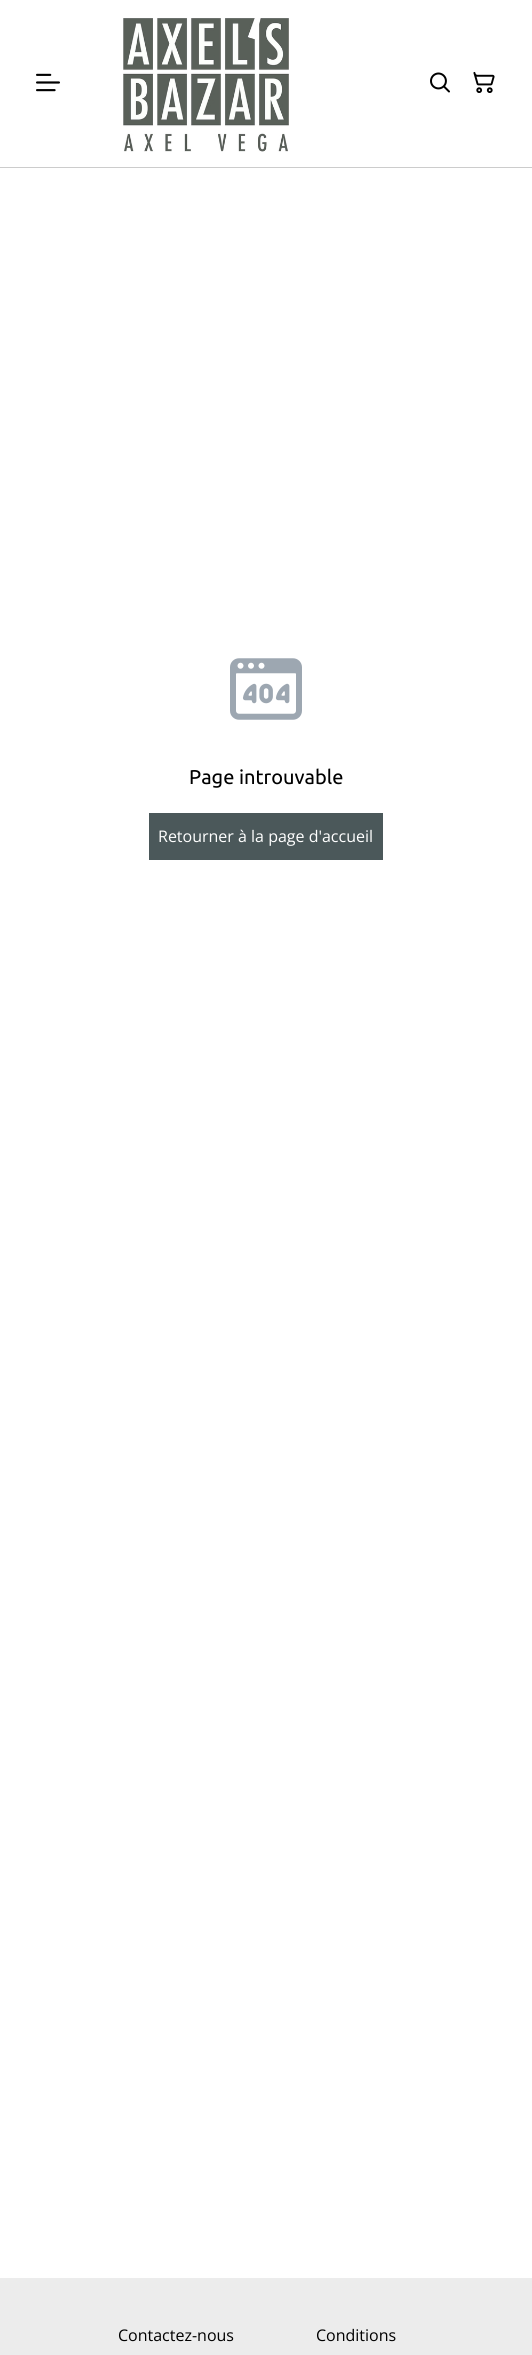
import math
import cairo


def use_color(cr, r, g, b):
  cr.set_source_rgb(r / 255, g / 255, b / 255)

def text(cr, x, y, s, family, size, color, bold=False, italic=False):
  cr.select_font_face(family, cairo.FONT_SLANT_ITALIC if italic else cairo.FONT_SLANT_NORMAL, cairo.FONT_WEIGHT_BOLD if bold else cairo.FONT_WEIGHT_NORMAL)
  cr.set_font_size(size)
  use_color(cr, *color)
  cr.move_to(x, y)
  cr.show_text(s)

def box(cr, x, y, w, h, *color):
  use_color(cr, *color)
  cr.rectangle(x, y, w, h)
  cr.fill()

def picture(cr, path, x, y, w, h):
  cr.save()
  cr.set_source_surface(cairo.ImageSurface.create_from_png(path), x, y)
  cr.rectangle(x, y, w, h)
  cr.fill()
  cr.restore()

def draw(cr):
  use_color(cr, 255, 255, 255)
  cr.paint()
  box(cr, 0, 167, 532, 1, 204, 204, 204)
  picture(cr, "img_01.png", 36, 73, 24, 19)
  picture(cr, "img_02.png", 123, 18, 166, 134)
  picture(cr, "img_03.png", 430, 72, 20, 21)
  picture(cr, "img_04.png", 473, 71, 22, 22)
  picture(cr, "img_05.png", 230, 658, 72, 62)
  box(cr, 149, 813, 234, 47, 75, 88, 90)
  box(cr, 0, 2278, 532, 77, 236, 236, 236)
  text(cr, 189, 784, "Page introuvable", "Ubuntu", 20, (0, 0, 0))
  text(cr, 158, 842, "Retourner à la page d'accueil", "Open Sans", 16, (255, 255, 255))
  text(cr, 118, 2341, "Contactez-nous", "Open Sans", 16, (0, 0, 0))
  text(cr, 316, 2341, "Conditions", "Open Sans", 16, (0, 0, 0))


surface = cairo.ImageSurface(cairo.FORMAT_RGB24, 532, 2355)
cr = cairo.Context(surface)
options = cairo.FontOptions()
options.set_hint_metrics(cairo.HINT_METRICS_OFF)
options.set_hint_style(cairo.HINT_STYLE_NONE)
cr.set_font_options(options)
cr.set_miter_limit(4)
draw(cr)
surface.write_to_png("out.png")
